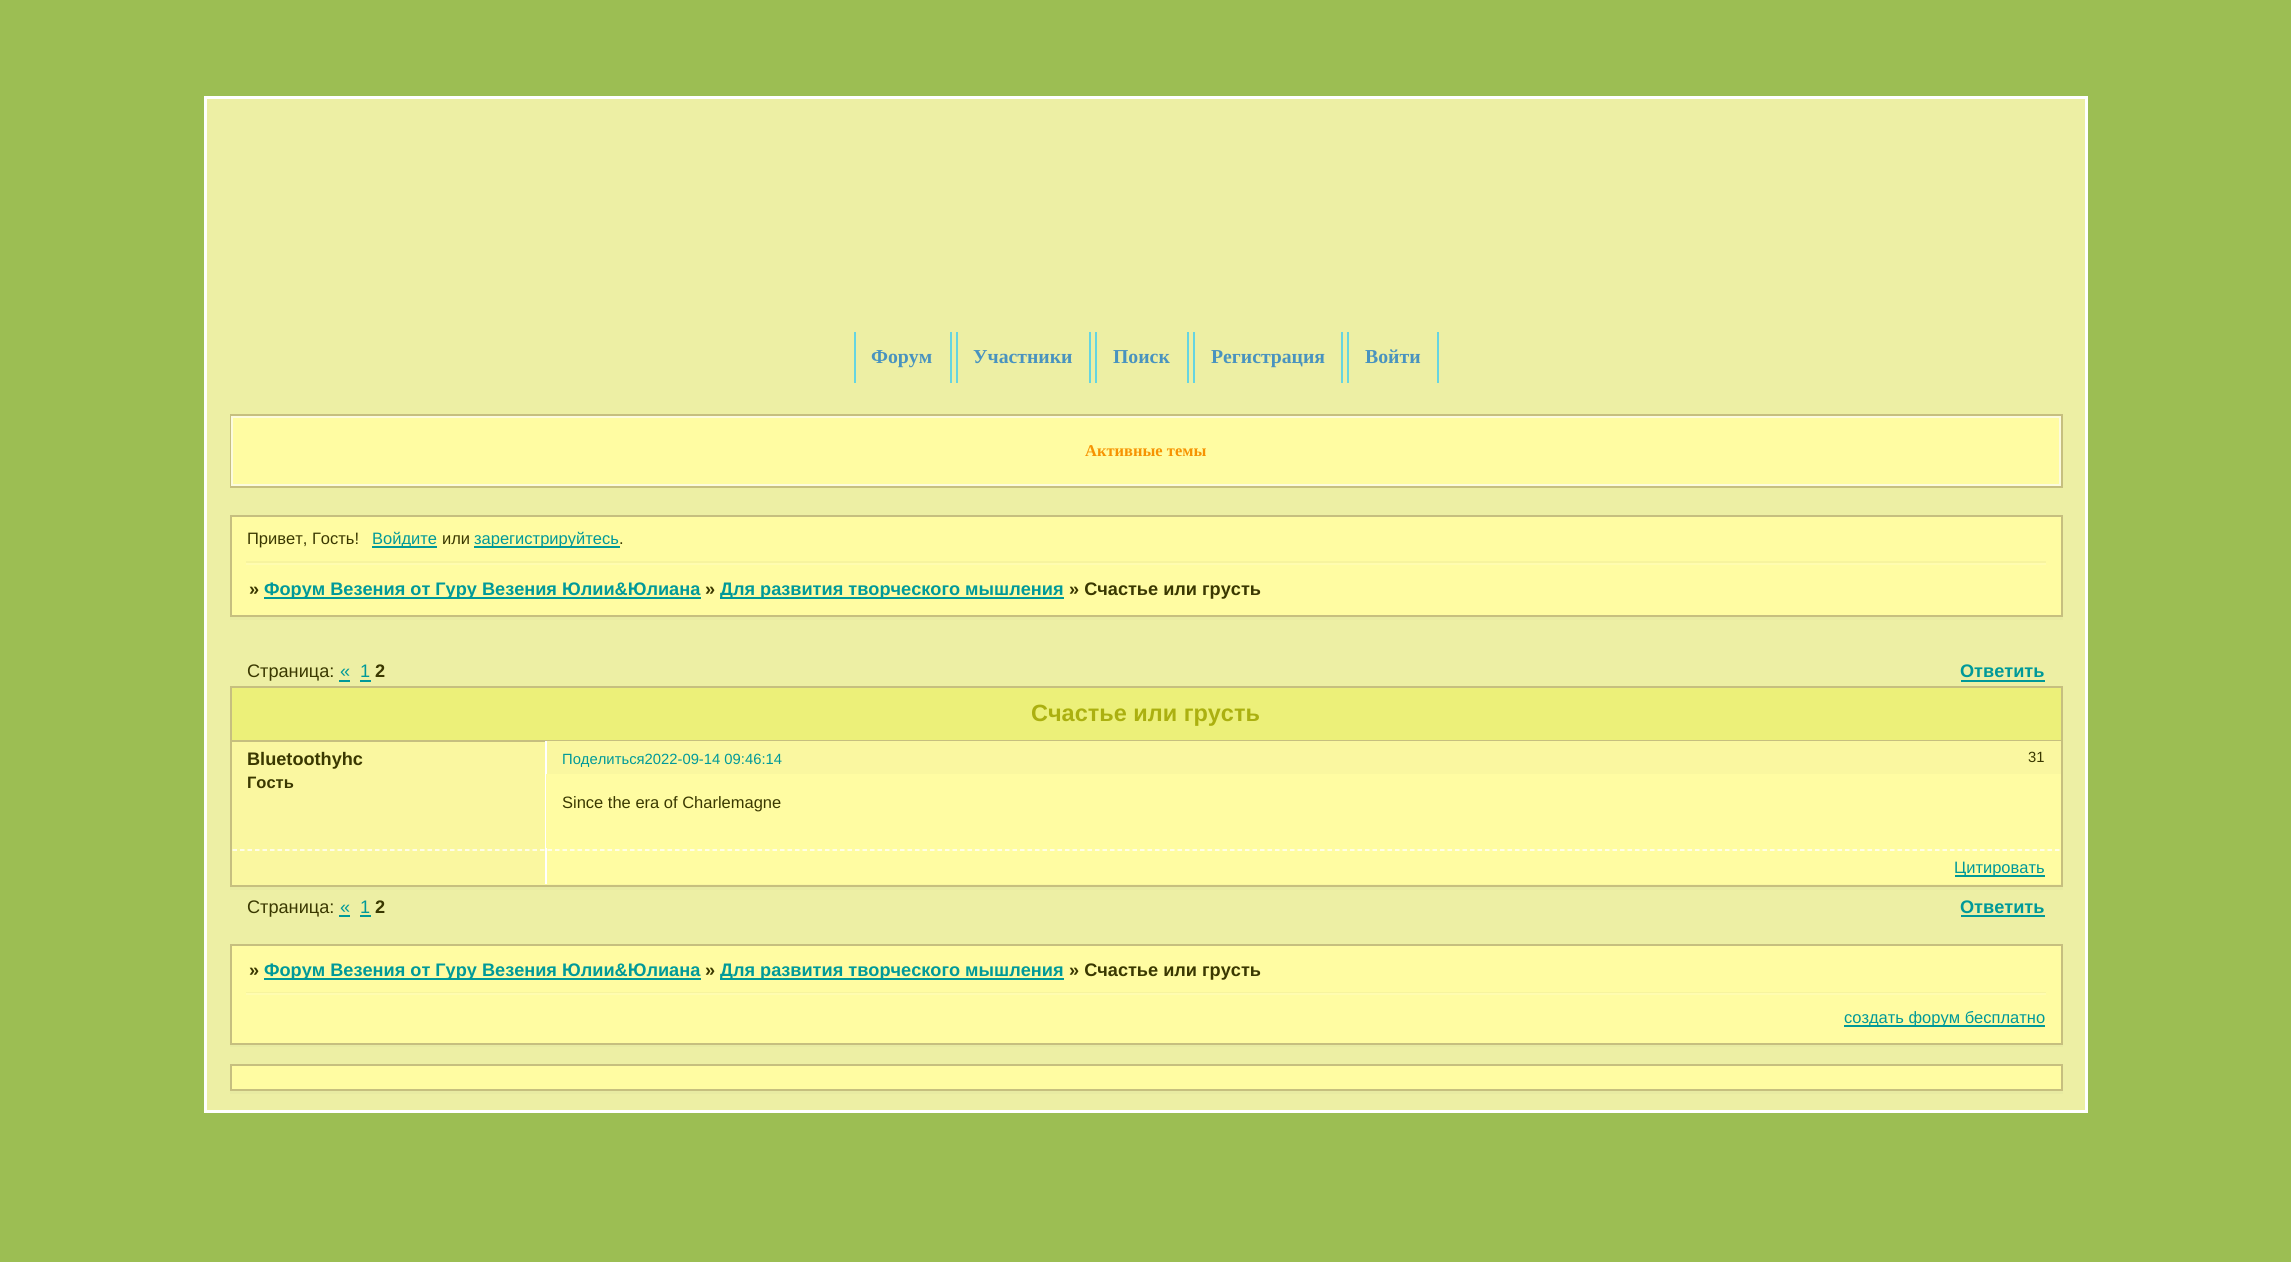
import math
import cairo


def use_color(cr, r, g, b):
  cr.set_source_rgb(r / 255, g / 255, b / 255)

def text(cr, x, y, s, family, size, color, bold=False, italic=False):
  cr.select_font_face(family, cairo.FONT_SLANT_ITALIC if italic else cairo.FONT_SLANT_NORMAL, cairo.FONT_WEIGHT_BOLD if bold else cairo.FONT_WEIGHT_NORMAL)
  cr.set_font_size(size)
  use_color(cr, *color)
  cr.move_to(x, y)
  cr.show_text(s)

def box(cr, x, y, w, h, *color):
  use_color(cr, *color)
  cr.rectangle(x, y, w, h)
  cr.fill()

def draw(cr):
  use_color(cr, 156, 190, 83)
  cr.paint()
  use_color(cr, 237, 239, 164)
  cr.rectangle(205.5, 97.5, 1881, 1014)
  cr.fill_preserve()
  use_color(cr, 255, 255, 255)
  cr.set_line_width(3)
  cr.stroke()
  box(cr, 950, 332, 2, 51, 102, 213, 225)
  box(cr, 854, 332, 2, 51, 102, 213, 225)
  box(cr, 1089, 332, 2, 51, 102, 213, 225)
  box(cr, 956, 332, 2, 51, 102, 213, 225)
  box(cr, 1187, 332, 2, 51, 102, 213, 225)
  box(cr, 1095, 332, 2, 51, 102, 213, 225)
  box(cr, 1341, 332, 2, 51, 102, 213, 225)
  box(cr, 1193, 332, 2, 51, 102, 213, 225)
  box(cr, 1437, 332, 2, 51, 102, 213, 225)
  box(cr, 1347, 332, 2, 51, 102, 213, 225)
  cr.rectangle(231, 415, 1831, 72)
  use_color(cr, 198, 191, 127)
  cr.set_line_width(2)
  cr.stroke()
  use_color(cr, 255, 252, 162)
  cr.rectangle(232, 417, 1828, 68)
  cr.fill_preserve()
  use_color(cr, 252, 251, 221)
  cr.stroke()
  box(cr, 232, 517, 1829, 98, 255, 252, 162)
  box(cr, 230, 515, 1833, 2, 198, 191, 127)
  box(cr, 2061, 515, 2, 102, 198, 191, 127)
  box(cr, 230, 515, 2, 49, 198, 191, 127)
  box(cr, 372, 546, 65, 2, 0, 153, 153)
  box(cr, 474, 546, 146, 2, 0, 153, 153)
  box(cr, 246, 561, 1800, 2, 247, 244, 158)
  box(cr, 246, 563, 1800, 2, 255, 252, 176)
  box(cr, 230, 617, 1833, 3, 232, 235, 162)
  box(cr, 230, 615, 1833, 2, 198, 191, 127)
  box(cr, 230, 561, 2, 56, 198, 191, 127)
  box(cr, 264, 597, 437, 2, 0, 153, 153)
  box(cr, 720, 597, 344, 2, 0, 153, 153)
  box(cr, 339, 680, 11, 2, 0, 153, 153)
  box(cr, 360, 680, 11, 2, 0, 153, 153)
  box(cr, 1961, 680, 84, 2, 0, 153, 153)
  box(cr, 232, 688, 1829, 52, 236, 240, 121)
  box(cr, 230, 686, 1833, 2, 198, 191, 127)
  box(cr, 2061, 686, 2, 54, 198, 191, 127)
  box(cr, 230, 686, 2, 54, 198, 191, 127)
  box(cr, 230, 887, 1833, 3, 232, 235, 162)
  box(cr, 230, 740, 1833, 2, 198, 191, 127)
  box(cr, 545, 741, 2, 35, 255, 255, 255)
  box(cr, 232, 774, 1829, 111, 250, 247, 160)
  box(cr, 2061, 740, 2, 147, 198, 191, 127)
  box(cr, 230, 885, 1833, 2, 198, 191, 127)
  box(cr, 230, 740, 2, 36, 198, 191, 127)
  box(cr, 230, 774, 2, 113, 198, 191, 127)
  box(cr, 547, 848, 1514, 36, 255, 252, 162)
  box(cr, 545, 774, 2, 110, 255, 255, 255)
  box(cr, 546, 774, 1515, 74, 255, 252, 162)
  cr.new_path()
  cr.move_to(232.5, 850)
  cr.line_to(2061, 850)
  use_color(cr, 255, 255, 255)
  cr.set_line_width(1.5)
  cr.set_dash([4.5, 3])
  cr.stroke()
  box(cr, 1955, 875, 90, 2, 0, 153, 153)
  box(cr, 232, 742, 313, 32, 250, 247, 160)
  box(cr, 547, 741, 1514, 33, 250, 247, 160)
  box(cr, 339, 915, 11, 2, 0, 153, 153)
  box(cr, 360, 915, 11, 2, 0, 153, 153)
  box(cr, 1961, 915, 84, 2, 0, 153, 153)
  box(cr, 230, 944, 1833, 2, 198, 191, 127)
  box(cr, 2061, 992, 2, 52, 198, 191, 127)
  box(cr, 2061, 944, 2, 51, 198, 191, 127)
  box(cr, 230, 1043, 1833, 2, 198, 191, 127)
  box(cr, 230, 992, 2, 52, 198, 191, 127)
  box(cr, 230, 944, 2, 51, 198, 191, 127)
  box(cr, 232, 946, 1829, 97, 255, 252, 162)
  box(cr, 264, 978, 437, 2, 0, 153, 153)
  box(cr, 720, 978, 344, 2, 0, 153, 153)
  box(cr, 246, 992, 1800, 1, 247, 244, 158)
  box(cr, 246, 993, 1800, 2, 255, 252, 176)
  box(cr, 230, 1045, 1833, 2, 232, 235, 162)
  box(cr, 1844, 1025, 201, 2, 0, 153, 153)
  box(cr, 230, 1091, 1833, 3, 232, 235, 162)
  use_color(cr, 255, 252, 162)
  cr.rectangle(231, 1065, 1831, 25)
  cr.fill_preserve()
  use_color(cr, 198, 191, 127)
  cr.set_line_width(2)
  cr.set_dash([])
  cr.stroke()
  text(cr, 871, 363, "Форум", "Liberation Serif", 19.75, (73, 147, 191), bold=True)
  text(cr, 973, 363, "Участники", "Liberation Serif", 19.75, (73, 147, 191), bold=True)
  text(cr, 1113, 363, "Поиск", "Liberation Serif", 19.75, (73, 147, 191), bold=True)
  text(cr, 1211, 363, "Регистрация", "Liberation Serif", 19.75, (73, 147, 191), bold=True)
  text(cr, 1365, 363, "Войти", "Liberation Serif", 19.75, (73, 147, 191), bold=True)
  text(cr, 1085, 456, "Активные темы", "Liberation Serif", 16.5, (246, 147, 2), bold=True)
  text(cr, 247, 544, "Привет, Гость!", "Liberation Sans", 16.5, (58, 56, 0))
  text(cr, 372, 544, "Войдите", "Liberation Sans", 16.5, (0, 153, 153))
  text(cr, 442, 544, "или", "Liberation Sans", 16.5, (58, 56, 0))
  text(cr, 474, 544, "зарегистрируйтесь", "Liberation Sans", 16.5, (0, 153, 153))
  text(cr, 619, 544, ".", "Liberation Sans", 16.5, (58, 56, 0))
  text(cr, 249, 595, "»", "Liberation Sans", 18.15, (58, 56, 0), bold=True)
  text(cr, 264, 595, "Форум Везения от Гуру Везения Юлии&Юлиана", "Liberation Sans", 18.15, (0, 153, 153), bold=True)
  text(cr, 705, 595, "»", "Liberation Sans", 18.15, (58, 56, 0), bold=True)
  text(cr, 720, 595, "Для развития творческого мышления", "Liberation Sans", 18.15, (0, 153, 153), bold=True)
  text(cr, 1069, 595, "» Счастье или грусть", "Liberation Sans", 18.15, (58, 56, 0), bold=True)
  text(cr, 247, 677, "Страница:", "Liberation Sans", 18.15, (58, 56, 0))
  text(cr, 340, 677, "«", "Liberation Sans", 18.15, (0, 153, 153))
  text(cr, 360, 677, "1", "Liberation Sans", 18.15, (0, 153, 153))
  text(cr, 375, 677, "2", "Liberation Sans", 18.15, (58, 56, 0), bold=True)
  text(cr, 1960, 677, "Ответить", "Liberation Sans", 18.15, (0, 153, 153), bold=True)
  text(cr, 1031, 721, "Счастье или грусть", "Liberation Sans", 23.5, (171, 176, 16), bold=True)
  text(cr, 247, 765, "Bluetoothyhc", "Liberation Sans", 18.15, (58, 56, 0), bold=True)
  text(cr, 247, 788, "Гость", "Liberation Sans", 16.5, (58, 56, 0), bold=True)
  text(cr, 562, 808, "Since the era of Charlemagne", "Liberation Sans", 16.5, (58, 56, 0))
  text(cr, 1954, 873, "Цитировать", "Liberation Sans", 16.5, (0, 153, 153))
  text(cr, 562, 764, "Поделиться2022-09-14 09:46:14", "Liberation Sans", 14.8, (0, 153, 153))
  text(cr, 2028, 762, "31", "Liberation Sans", 14.8, (58, 56, 0))
  text(cr, 247, 913, "Страница:", "Liberation Sans", 18.15, (58, 56, 0))
  text(cr, 340, 913, "«", "Liberation Sans", 18.15, (0, 153, 153))
  text(cr, 360, 913, "1", "Liberation Sans", 18.15, (0, 153, 153))
  text(cr, 375, 913, "2", "Liberation Sans", 18.15, (58, 56, 0), bold=True)
  text(cr, 1960, 913, "Ответить", "Liberation Sans", 18.15, (0, 153, 153), bold=True)
  text(cr, 249, 976, "»", "Liberation Sans", 18.15, (58, 56, 0), bold=True)
  text(cr, 264, 976, "Форум Везения от Гуру Везения Юлии&Юлиана", "Liberation Sans", 18.15, (0, 153, 153), bold=True)
  text(cr, 705, 976, "»", "Liberation Sans", 18.15, (58, 56, 0), bold=True)
  text(cr, 720, 976, "Для развития творческого мышления", "Liberation Sans", 18.15, (0, 153, 153), bold=True)
  text(cr, 1069, 976, "» Счастье или грусть", "Liberation Sans", 18.15, (58, 56, 0), bold=True)
  text(cr, 1844, 1023, "создать форум бесплатно", "Liberation Sans", 16.5, (0, 153, 153))


surface = cairo.ImageSurface(cairo.FORMAT_RGB24, 2291, 1262)
cr = cairo.Context(surface)
options = cairo.FontOptions()
options.set_hint_metrics(cairo.HINT_METRICS_OFF)
options.set_hint_style(cairo.HINT_STYLE_NONE)
cr.set_font_options(options)
cr.set_miter_limit(4)
draw(cr)
surface.write_to_png("out.png")
